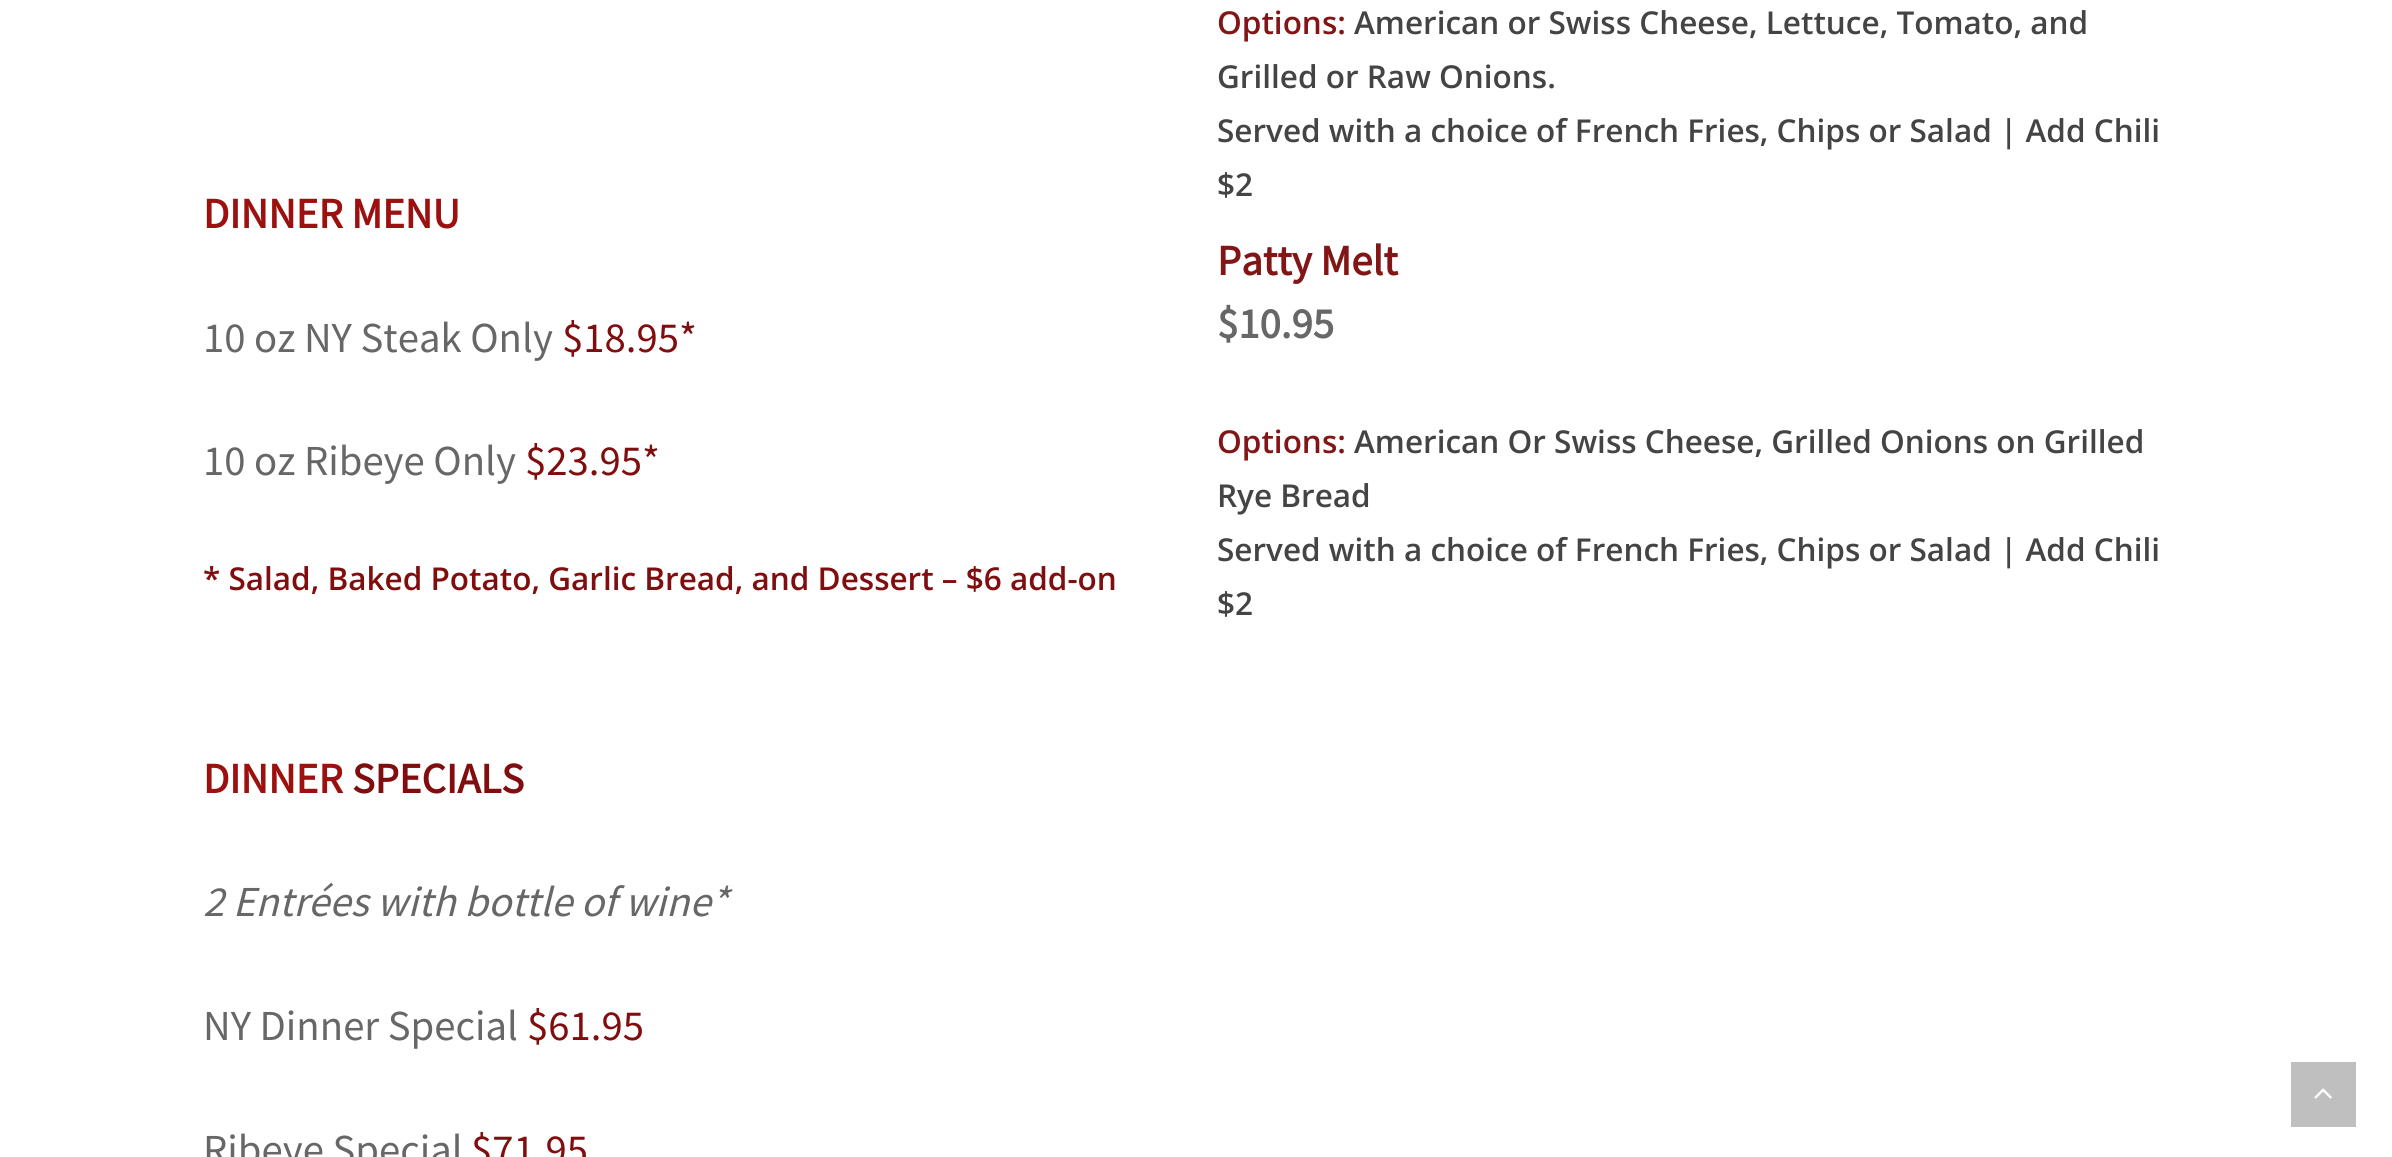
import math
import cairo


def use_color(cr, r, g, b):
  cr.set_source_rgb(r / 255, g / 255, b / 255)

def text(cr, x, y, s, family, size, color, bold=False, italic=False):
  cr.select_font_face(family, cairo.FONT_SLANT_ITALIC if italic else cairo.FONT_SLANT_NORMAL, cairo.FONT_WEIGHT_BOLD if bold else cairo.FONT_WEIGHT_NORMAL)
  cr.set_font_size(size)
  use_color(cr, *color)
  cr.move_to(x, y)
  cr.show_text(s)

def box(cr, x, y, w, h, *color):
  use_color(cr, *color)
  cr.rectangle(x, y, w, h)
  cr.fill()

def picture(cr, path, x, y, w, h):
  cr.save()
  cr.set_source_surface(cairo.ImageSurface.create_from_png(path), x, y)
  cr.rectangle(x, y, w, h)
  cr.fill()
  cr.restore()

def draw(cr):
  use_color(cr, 255, 255, 255)
  cr.paint()
  box(cr, 2291, 1062, 65, 65, 191, 191, 191)
  picture(cr, "img_01.png", 2314, 1088, 18, 11)
  text(cr, 203, 228, "DINNER MENU", "Source Sans Pro", 42.75, (156, 16, 16), bold=True)
  text(cr, 203, 352, "10 oz NY Steak Only", "Source Sans Pro", 42.75, (103, 103, 103))
  text(cr, 562, 352, "$18.95*", "Source Sans Pro", 42.75, (128, 14, 14))
  text(cr, 203, 475, "10 oz Ribeye Only", "Source Sans Pro", 42.75, (103, 103, 103))
  text(cr, 525, 475, "$23.95*", "Source Sans Pro", 42.75, (128, 14, 14))
  text(cr, 203, 590, "* Salad, Baked Potato, Garlic Bread, and Dessert – $6 add-on", "Open Sans SemiBold", 31.5, (128, 14, 14))
  text(cr, 203, 793, "DINNER", "Source Sans Pro", 42.75, (156, 16, 16), bold=True)
  text(cr, 352, 793, "SPECIALS", "Source Sans Pro", 42.75, (128, 14, 14), bold=True)
  text(cr, 203, 916, "2 Entrées with bottle of wine*", "Source Sans Pro", 42.75, (103, 103, 103), italic=True)
  text(cr, 203, 1040, "NY Dinner Special", "Source Sans Pro", 42.75, (103, 103, 103))
  text(cr, 527, 1040, "$61.95", "Source Sans Pro", 42.75, (128, 14, 14))
  text(cr, 203, 1164, "Ribeye Special", "Source Sans Pro", 42.75, (103, 103, 103))
  text(cr, 471, 1164, "$71.95", "Source Sans Pro", 42.75, (128, 14, 14))
  text(cr, 1217, 34, "Options:", "Open Sans SemiBold", 31.5, (130, 21, 21))
  text(cr, 1354, 34, "American or Swiss Cheese, Lettuce, Tomato, and", "Open Sans SemiBold", 31.5, (68, 68, 68))
  text(cr, 1217, 88, "Grilled or Raw Onions.", "Open Sans SemiBold", 31.5, (68, 68, 68))
  text(cr, 1217, 142, "Served with a choice of French Fries, Chips or Salad | Add Chili", "Open Sans SemiBold", 31.5, (68, 68, 68))
  text(cr, 1217, 196, "$2", "Open Sans SemiBold", 31.5, (68, 68, 68))
  text(cr, 1217, 275, "Patty Melt", "Source Sans Pro", 42.75, (130, 21, 21), bold=True)
  text(cr, 1217, 338, "$10.95", "Source Sans Pro", 42.75, (103, 103, 103), bold=True)
  text(cr, 1217, 453, "Options:", "Open Sans SemiBold", 31.5, (130, 21, 21))
  text(cr, 1354, 453, "American Or Swiss Cheese, Grilled Onions on Grilled", "Open Sans SemiBold", 31.5, (68, 68, 68))
  text(cr, 1217, 507, "Rye Bread", "Open Sans SemiBold", 31.5, (68, 68, 68))
  text(cr, 1217, 561, "Served with a choice of French Fries, Chips or Salad | Add Chili", "Open Sans SemiBold", 31.5, (68, 68, 68))
  text(cr, 1217, 615, "$2", "Open Sans SemiBold", 31.5, (68, 68, 68))


surface = cairo.ImageSurface(cairo.FORMAT_RGB24, 2392, 1157)
cr = cairo.Context(surface)
options = cairo.FontOptions()
options.set_hint_metrics(cairo.HINT_METRICS_OFF)
options.set_hint_style(cairo.HINT_STYLE_NONE)
cr.set_font_options(options)
cr.set_miter_limit(4)
draw(cr)
surface.write_to_png("out.png")
